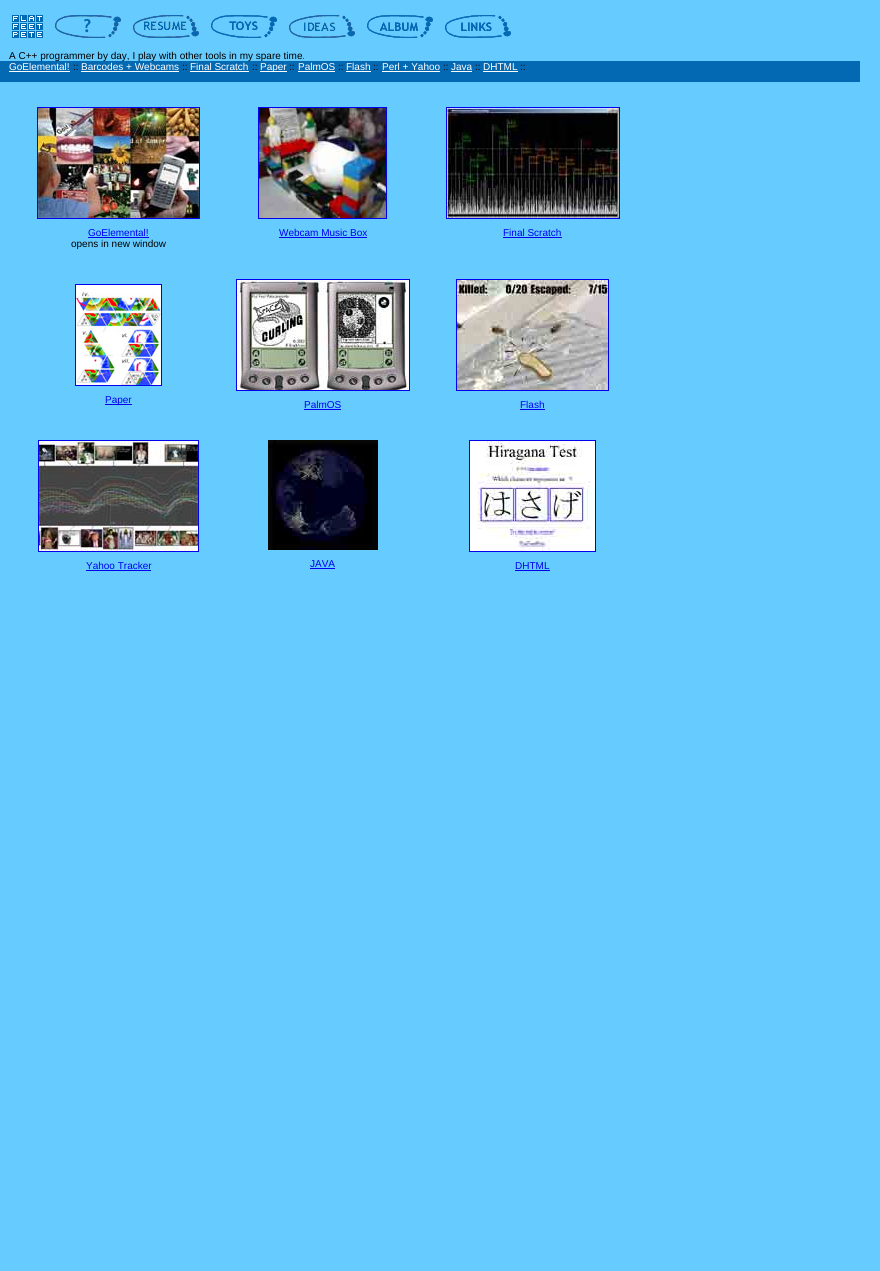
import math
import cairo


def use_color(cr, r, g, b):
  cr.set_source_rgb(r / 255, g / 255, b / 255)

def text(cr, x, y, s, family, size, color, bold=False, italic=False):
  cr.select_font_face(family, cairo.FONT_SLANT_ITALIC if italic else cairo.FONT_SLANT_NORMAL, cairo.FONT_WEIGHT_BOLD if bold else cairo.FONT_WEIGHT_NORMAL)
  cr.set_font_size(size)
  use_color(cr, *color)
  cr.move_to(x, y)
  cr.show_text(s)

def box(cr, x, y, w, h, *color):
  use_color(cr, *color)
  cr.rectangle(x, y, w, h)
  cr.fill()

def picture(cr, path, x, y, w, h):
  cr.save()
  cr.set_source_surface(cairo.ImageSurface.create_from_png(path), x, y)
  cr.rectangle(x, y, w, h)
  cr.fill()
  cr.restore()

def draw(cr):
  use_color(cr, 102, 204, 255)
  cr.paint()
  picture(cr, "img_01.png", 12, 15, 31, 23)
  picture(cr, "img_02.png", 55, 15, 66, 23)
  picture(cr, "img_03.png", 133, 15, 66, 23)
  picture(cr, "img_04.png", 211, 15, 66, 23)
  picture(cr, "img_05.png", 289, 15, 66, 23)
  picture(cr, "img_06.png", 367, 15, 66, 23)
  picture(cr, "img_07.png", 445, 15, 66, 23)
  box(cr, 0, 61, 860, 21, 4, 105, 179)
  box(cr, 9, 71, 61, 1, 255, 255, 255)
  box(cr, 81, 71, 98, 1, 255, 255, 255)
  box(cr, 190, 71, 59, 1, 255, 255, 255)
  box(cr, 260, 71, 27, 1, 255, 255, 255)
  box(cr, 298, 71, 37, 1, 255, 255, 255)
  box(cr, 346, 71, 25, 1, 255, 255, 255)
  box(cr, 382, 71, 58, 1, 255, 255, 255)
  box(cr, 451, 71, 21, 1, 255, 255, 255)
  box(cr, 483, 71, 35, 1, 255, 255, 255)
  cr.rectangle(37.5, 107.5, 162, 111)
  use_color(cr, 0, 0, 238)
  cr.set_line_width(1)
  cr.stroke()
  picture(cr, "img_08.png", 38, 108, 161, 110)
  box(cr, 88, 237, 61, 1, 0, 0, 238)
  cr.rectangle(258.5, 107.5, 128, 111)
  cr.stroke()
  picture(cr, "img_09.png", 259, 108, 127, 110)
  box(cr, 279, 237, 88, 1, 0, 0, 238)
  cr.rectangle(446.5, 107.5, 173, 111)
  cr.stroke()
  picture(cr, "img_10.png", 447, 108, 172, 110)
  box(cr, 503, 237, 59, 1, 0, 0, 238)
  cr.rectangle(75.5, 284.5, 86, 101)
  cr.stroke()
  picture(cr, "img_11.png", 76, 285, 85, 100)
  box(cr, 105, 404, 27, 1, 0, 0, 238)
  cr.rectangle(236.5, 279.5, 173, 111)
  cr.stroke()
  picture(cr, "img_12.png", 237, 280, 172, 110)
  box(cr, 304, 409, 37, 1, 0, 0, 238)
  cr.rectangle(456.5, 279.5, 152, 111)
  cr.stroke()
  picture(cr, "img_13.png", 457, 280, 151, 110)
  box(cr, 520, 409, 25, 1, 0, 0, 238)
  cr.rectangle(38.5, 440.5, 160, 111)
  cr.stroke()
  picture(cr, "img_14.png", 39, 441, 159, 110)
  box(cr, 86, 570, 65, 1, 0, 0, 238)
  picture(cr, "img_15.png", 268, 440, 110, 110)
  box(cr, 310, 568, 25, 1, 0, 0, 238)
  cr.rectangle(469.5, 440.5, 126, 111)
  cr.stroke()
  picture(cr, "img_16.png", 470, 441, 125, 110)
  box(cr, 515, 570, 35, 1, 0, 0, 238)
  text(cr, 9, 59, "A C++ programmer by day, I play with other tools in my spare time.", "Liberation Sans", 10, (0, 0, 0))
  text(cr, 9, 70, "GoElemental!", "Liberation Sans", 10, (255, 255, 255))
  text(cr, 73, 70, "::", "Liberation Sans", 10, (34, 0, 0))
  text(cr, 81, 70, "Barcodes + Webcams", "Liberation Sans", 10, (255, 255, 255))
  text(cr, 182, 70, "::", "Liberation Sans", 10, (34, 0, 0))
  text(cr, 190, 70, "Final Scratch", "Liberation Sans", 10, (255, 255, 255))
  text(cr, 252, 70, "::", "Liberation Sans", 10, (34, 0, 0))
  text(cr, 260, 70, "Paper", "Liberation Sans", 10, (255, 255, 255))
  text(cr, 289, 70, "::", "Liberation Sans", 10, (34, 0, 0))
  text(cr, 298, 70, "PalmOS", "Liberation Sans", 10, (255, 255, 255))
  text(cr, 338, 70, "::", "Liberation Sans", 10, (34, 0, 0))
  text(cr, 346, 70, "Flash", "Liberation Sans", 10, (255, 255, 255))
  text(cr, 373, 70, "::", "Liberation Sans", 10, (34, 0, 0))
  text(cr, 382, 70, "Perl + Yahoo", "Liberation Sans", 10, (255, 255, 255))
  text(cr, 443, 70, "::", "Liberation Sans", 10, (34, 0, 0))
  text(cr, 451, 70, "Java", "Liberation Sans", 10, (255, 255, 255))
  text(cr, 475, 70, "::", "Liberation Sans", 10, (34, 0, 0))
  text(cr, 483, 70, "DHTML", "Liberation Sans", 10, (255, 255, 255))
  text(cr, 520, 70, "::", "Liberation Sans", 10, (34, 0, 0))
  text(cr, 88, 236, "GoElemental!", "Liberation Sans", 10, (0, 0, 238))
  text(cr, 71, 247, "opens in new window", "Liberation Sans", 10, (0, 0, 0))
  text(cr, 279, 236, "Webcam Music Box", "Liberation Sans", 10, (0, 0, 238))
  text(cr, 503, 236, "Final Scratch", "Liberation Sans", 10, (0, 0, 238))
  text(cr, 105, 403, "Paper", "Liberation Sans", 10, (0, 0, 238))
  text(cr, 304, 408, "PalmOS", "Liberation Sans", 10, (0, 0, 238))
  text(cr, 520, 408, "Flash", "Liberation Sans", 10, (0, 0, 238))
  text(cr, 86, 569, "Yahoo Tracker", "Liberation Sans", 10, (0, 0, 238))
  text(cr, 310, 567, "JAVA", "Liberation Sans", 10, (0, 0, 238))
  text(cr, 515, 569, "DHTML", "Liberation Sans", 10, (0, 0, 238))


surface = cairo.ImageSurface(cairo.FORMAT_RGB24, 880, 1271)
cr = cairo.Context(surface)
options = cairo.FontOptions()
options.set_hint_metrics(cairo.HINT_METRICS_OFF)
options.set_hint_style(cairo.HINT_STYLE_NONE)
cr.set_font_options(options)
cr.set_miter_limit(4)
draw(cr)
surface.write_to_png("out.png")
